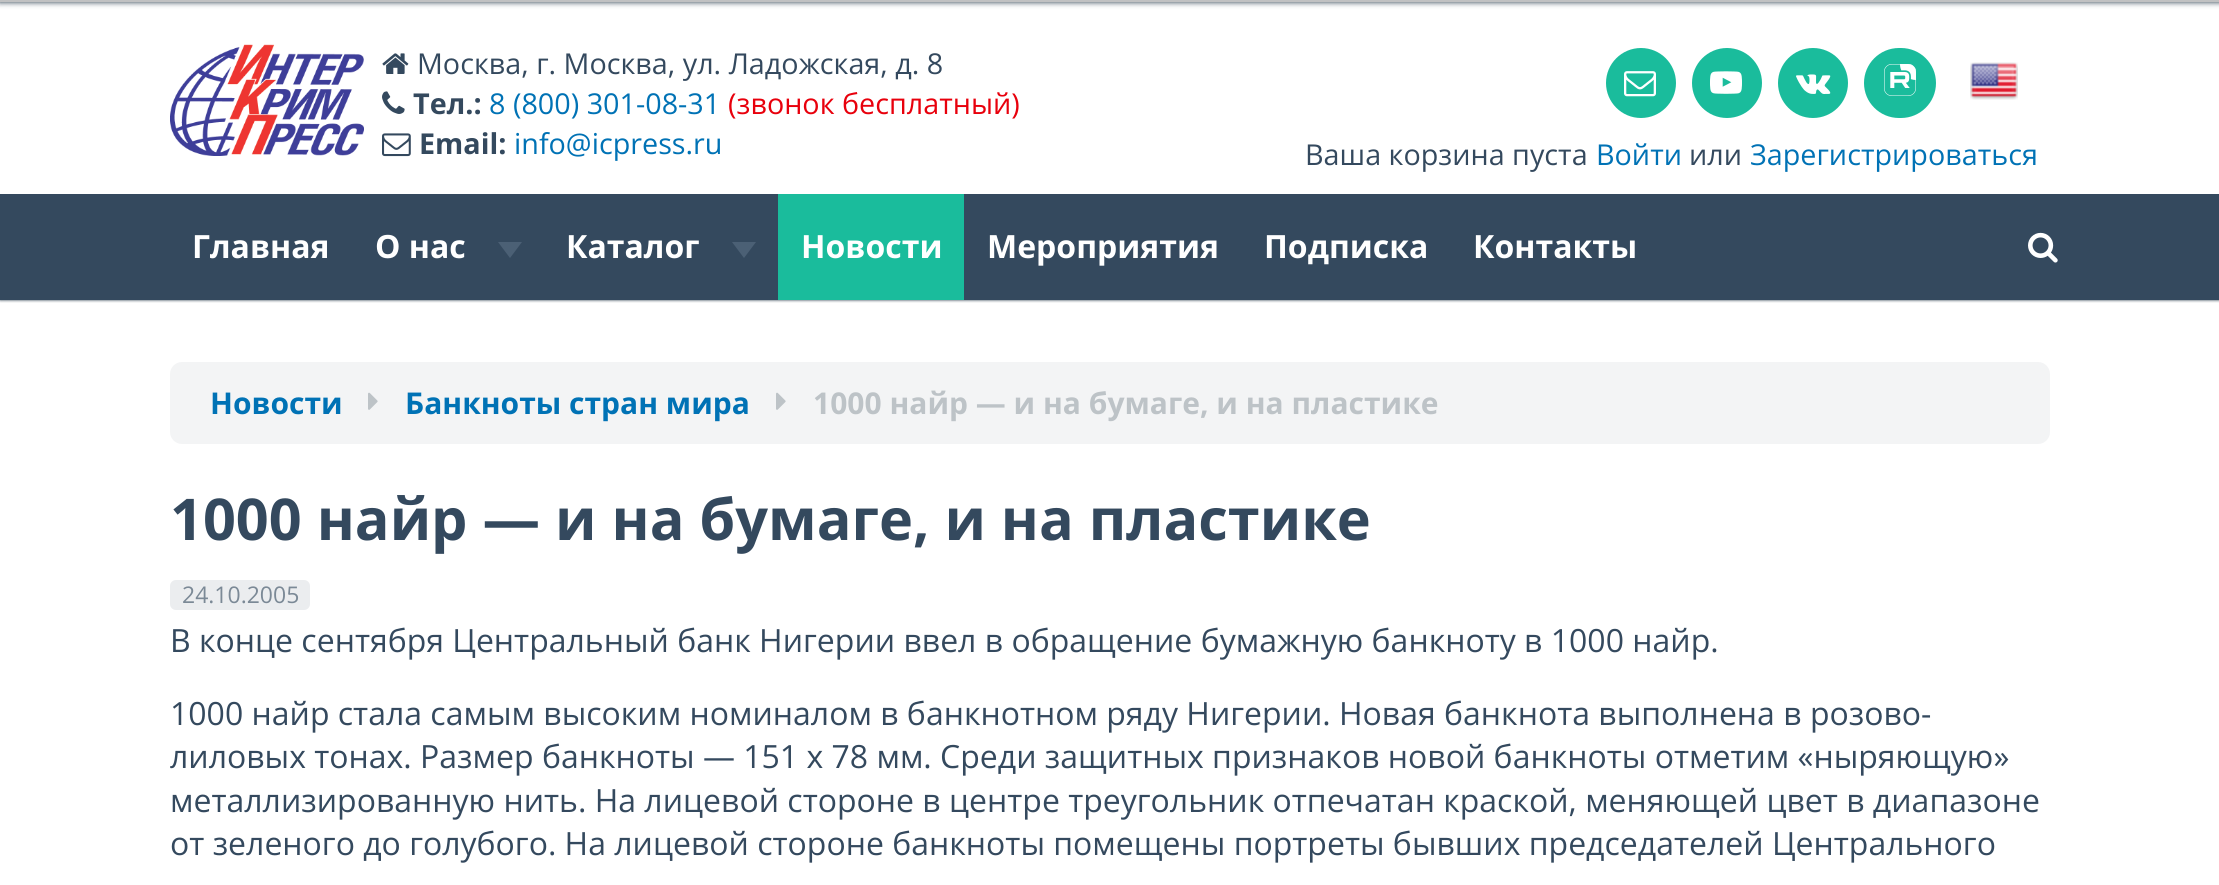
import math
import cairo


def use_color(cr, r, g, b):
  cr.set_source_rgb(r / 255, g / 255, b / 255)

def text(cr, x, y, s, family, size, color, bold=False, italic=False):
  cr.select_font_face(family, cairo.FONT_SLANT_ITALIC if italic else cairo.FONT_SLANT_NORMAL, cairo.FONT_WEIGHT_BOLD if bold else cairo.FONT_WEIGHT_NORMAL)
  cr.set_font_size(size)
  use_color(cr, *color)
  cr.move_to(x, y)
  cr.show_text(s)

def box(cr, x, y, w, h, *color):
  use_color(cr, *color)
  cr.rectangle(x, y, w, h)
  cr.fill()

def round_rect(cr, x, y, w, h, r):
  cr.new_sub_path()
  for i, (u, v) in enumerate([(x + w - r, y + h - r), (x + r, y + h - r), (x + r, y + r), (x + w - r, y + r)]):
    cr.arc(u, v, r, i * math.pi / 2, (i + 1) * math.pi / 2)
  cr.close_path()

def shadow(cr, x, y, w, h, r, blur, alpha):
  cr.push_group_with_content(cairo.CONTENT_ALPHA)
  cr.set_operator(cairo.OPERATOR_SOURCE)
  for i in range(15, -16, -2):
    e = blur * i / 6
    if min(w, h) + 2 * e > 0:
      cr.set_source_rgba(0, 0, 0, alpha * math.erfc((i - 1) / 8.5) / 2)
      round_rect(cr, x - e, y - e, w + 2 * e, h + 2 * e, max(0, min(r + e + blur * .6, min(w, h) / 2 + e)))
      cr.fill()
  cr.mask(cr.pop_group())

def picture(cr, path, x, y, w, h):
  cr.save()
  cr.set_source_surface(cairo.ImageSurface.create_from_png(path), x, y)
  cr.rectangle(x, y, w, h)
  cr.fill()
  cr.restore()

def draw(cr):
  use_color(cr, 255, 255, 255)
  cr.paint()
  use_color(cr, 26, 188, 156)
  cr.arc(1641, 83, 35, 0, 2 * math.pi)
  cr.fill()
  cr.arc(1727, 83, 35, 0, 2 * math.pi)
  cr.fill()
  cr.arc(1813, 83, 35, 0, 2 * math.pi)
  cr.fill()
  round_rect(cr, 1864, 48, 72, 70, 35)
  cr.fill()
  cr.save()
  cr.rectangle(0, 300, 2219, 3)
  cr.clip()
  use_color(cr, 30, 50, 67)
  shadow(cr, 0, 0, 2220, 300, 0, 1.5, 1)
  cr.restore()
  use_color(cr, 30, 50, 67)
  shadow(cr, 0, 0, 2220, 2, 0, 3, 1)
  box(cr, 0, 0, 2219, 2, 192, 193, 194)
  picture(cr, "img_01.png", 170, 44, 194, 112)
  picture(cr, "img_02.png", 382, 53, 27, 21)
  picture(cr, "img_03.png", 382, 91, 23, 23)
  picture(cr, "img_04.png", 382, 133, 29, 24)
  picture(cr, "img_05.png", 1624, 71, 32, 26)
  picture(cr, "img_06.png", 1710, 71, 32, 23)
  picture(cr, "img_07.png", 1796, 74, 35, 20)
  picture(cr, "img_08.png", 1884, 64, 32, 32)
  picture(cr, "img_09.png", 1970, 62, 48, 38)
  box(cr, 0, 194, 2219, 106, 52, 73, 94)
  use_color(cr, 75, 96, 117)
  cr.new_path()
  cr.move_to(498, 242)
  cr.line_to(522, 242)
  cr.line_to(510, 258)
  cr.close_path()
  cr.fill()
  cr.new_path()
  cr.move_to(732, 242)
  cr.line_to(756, 242)
  cr.line_to(744, 258)
  cr.close_path()
  cr.fill()
  box(cr, 778, 194, 186, 106, 26, 188, 156)
  picture(cr, "img_10.png", 2028, 232, 30, 31)
  use_color(cr, 243, 244, 245)
  round_rect(cr, 170, 362, 1880, 82, 12)
  cr.fill()
  picture(cr, "img_11.png", 368, 392, 10, 18)
  picture(cr, "img_11.png", 776, 392, 10, 18)
  use_color(cr, 235, 237, 239)
  round_rect(cr, 170, 580, 140, 30, 6)
  cr.fill()
  text(cr, 417, 74, "Москва, г. Москва, ул. Ладожская, д. 8", "Open Sans", 28.75, (52, 73, 94))
  text(cr, 413, 114, "Тел.:", "Open Sans", 28.75, (52, 73, 94), bold=True)
  text(cr, 489, 114, "8 (800) 301-08-31", "Open Sans", 28.75, (0, 114, 181))
  text(cr, 728, 114, "(звонок бесплатный)", "Open Sans", 28.75, (232, 0, 12))
  text(cr, 419, 154, "Email:", "Open Sans", 28.75, (52, 73, 94), bold=True)
  text(cr, 514, 154, "info@icpress.ru", "Open Sans", 28.75, (0, 114, 181))
  text(cr, 1305, 165, "Ваша корзина пуста", "Open Sans", 28.75, (52, 73, 94))
  text(cr, 1596, 165, "Войти", "Open Sans", 28.75, (0, 114, 181))
  text(cr, 1689, 165, "или", "Open Sans", 28.75, (52, 73, 94))
  text(cr, 1750, 165, "Зарегистрироваться", "Open Sans", 28.75, (0, 114, 181))
  text(cr, 192, 258, "Главная", "Open Sans", 32, (255, 255, 255), bold=True)
  text(cr, 375, 258, "О нас", "Open Sans", 32, (255, 255, 255), bold=True)
  text(cr, 566, 258, "Каталог", "Open Sans", 32, (255, 255, 255), bold=True)
  text(cr, 801, 258, "Новости", "Open Sans", 32, (255, 255, 255), bold=True)
  text(cr, 987, 258, "Мероприятия", "Open Sans", 32, (255, 255, 255), bold=True)
  text(cr, 1264, 258, "Подписка", "Open Sans", 32, (255, 255, 255), bold=True)
  text(cr, 1473, 258, "Контакты", "Open Sans", 32, (255, 255, 255), bold=True)
  text(cr, 210, 414, "Новости", "Open Sans", 30, (0, 114, 181), bold=True)
  text(cr, 405, 414, "Банкноты стран мира", "Open Sans", 30, (0, 114, 181), bold=True)
  text(cr, 813, 414, "1000 найр — и на бумаге, и на пластике", "Open Sans", 30, (189, 195, 199), bold=True)
  text(cr, 170, 540, "1000 найр — и на бумаге, и на пластике", "Open Sans", 57.6, (52, 73, 94), bold=True)
  text(cr, 182, 603, "24.10.2005", "Open Sans", 23, (123, 137, 150))
  text(cr, 170, 652, "В конце сентября Центральный банк Нигерии ввел в обращение бумажную банкноту в 1000 найр.", "Open Sans", 32, (52, 73, 94))
  text(cr, 170, 725, "1000 найр стала самым высоким номиналом в банкнотном ряду Нигерии. Новая банкнота выполнена в розово-", "Open Sans", 32, (52, 73, 94))
  text(cr, 170, 768, "лиловых тонах. Размер банкноты — 151 х 78 мм. Среди защитных признаков новой банкноты отметим «ныряющую»", "Open Sans", 32, (52, 73, 94))
  text(cr, 170, 812, "металлизированную нить. На лицевой стороне в центре треугольник отпечатан краской, меняющей цвет в диапазоне", "Open Sans", 32, (52, 73, 94))
  text(cr, 170, 855, "от зеленого до голубого. На лицевой стороне банкноты помещены портреты бывших председателей Центрального", "Open Sans", 32, (52, 73, 94))


surface = cairo.ImageSurface(cairo.FORMAT_RGB24, 2219, 885)
cr = cairo.Context(surface)
options = cairo.FontOptions()
options.set_hint_metrics(cairo.HINT_METRICS_OFF)
options.set_hint_style(cairo.HINT_STYLE_NONE)
cr.set_font_options(options)
cr.set_miter_limit(4)
draw(cr)
surface.write_to_png("out.png")
